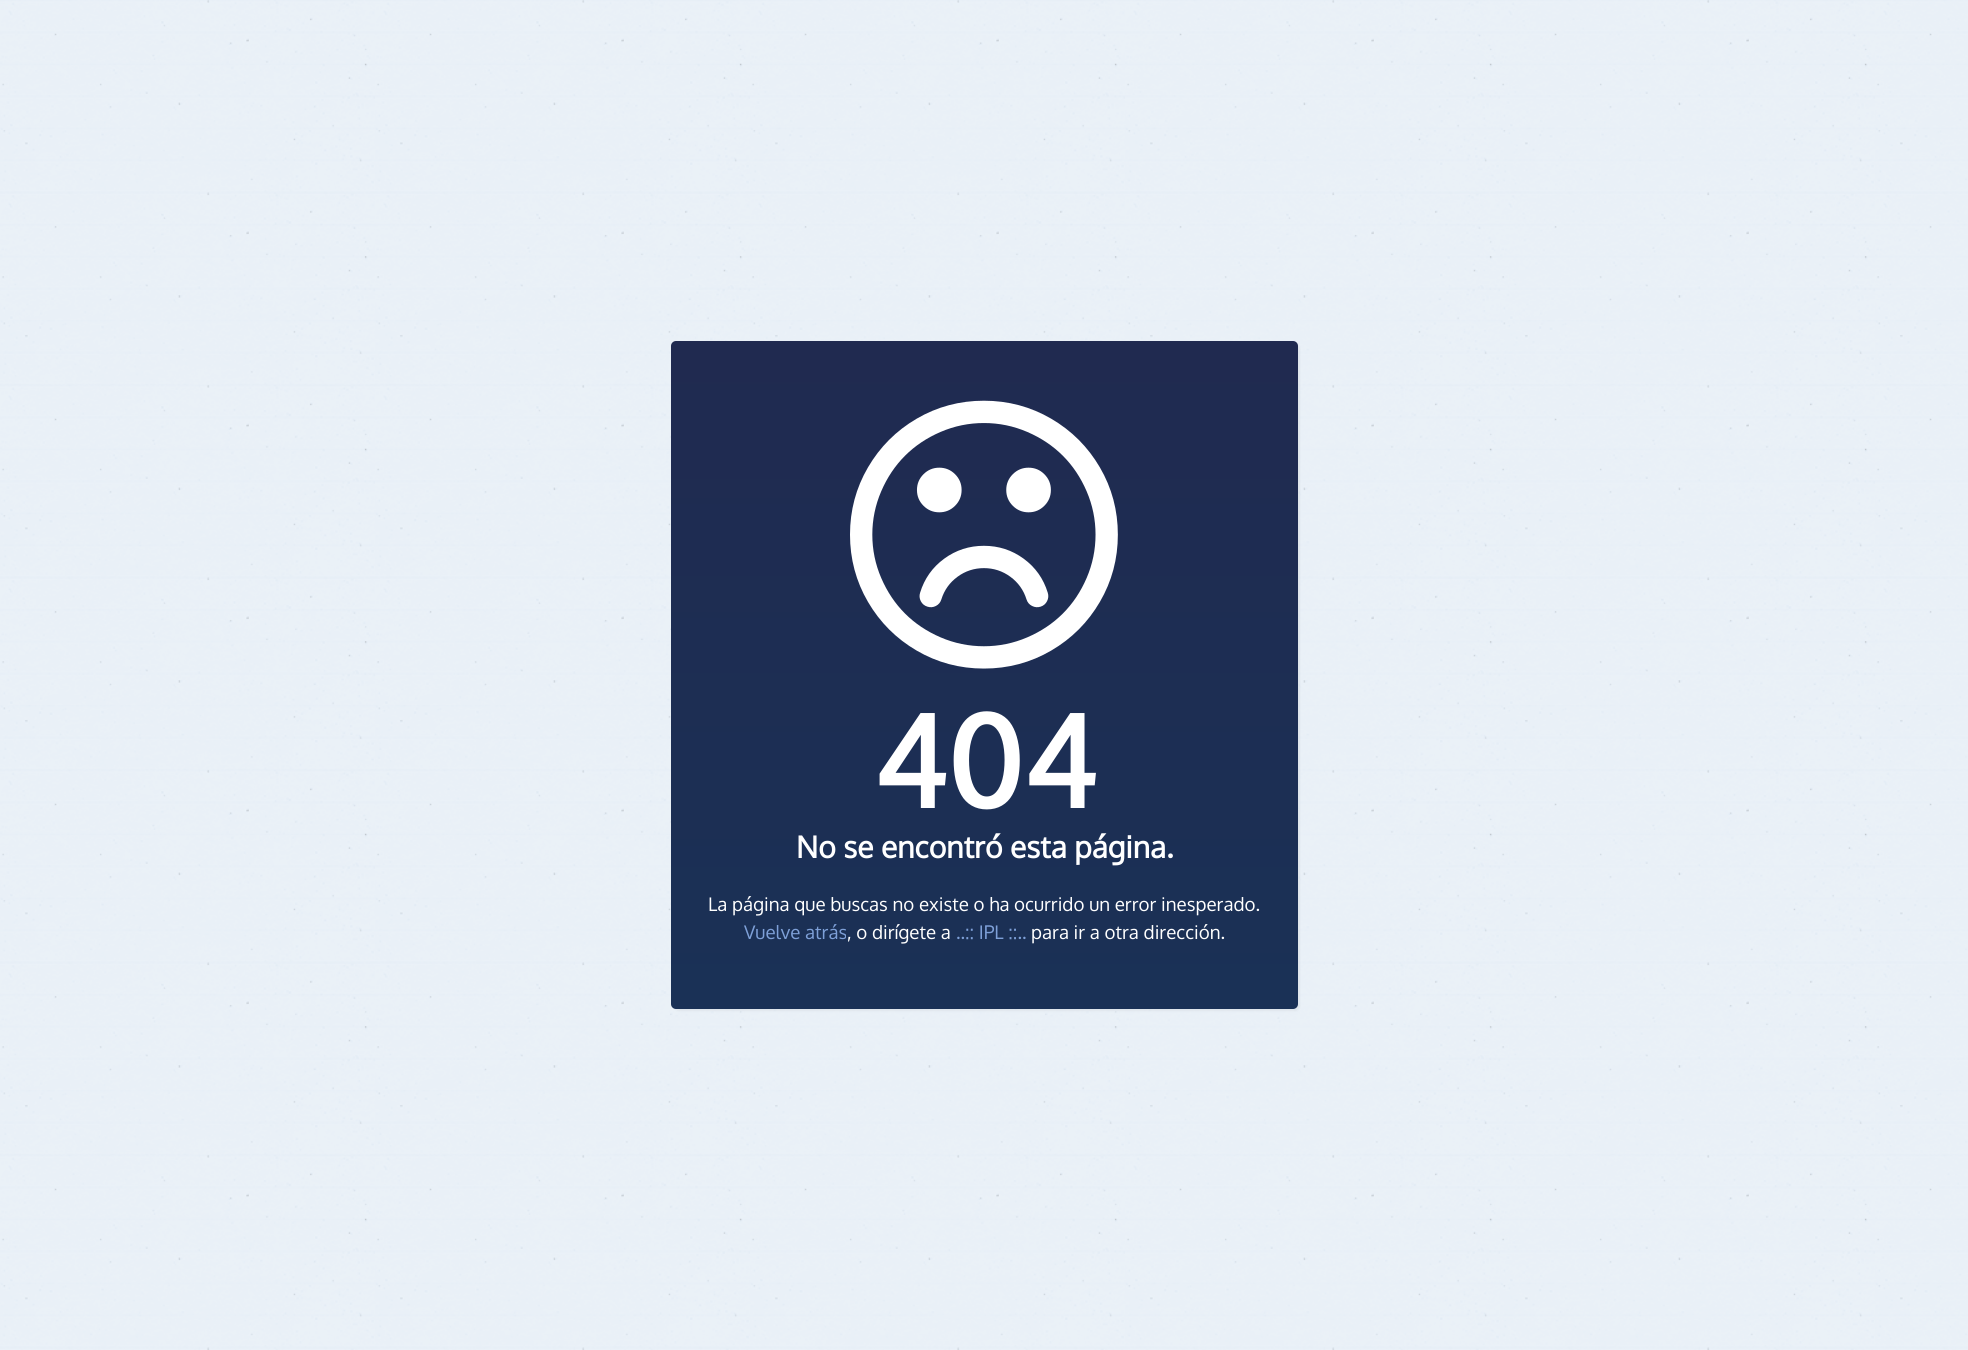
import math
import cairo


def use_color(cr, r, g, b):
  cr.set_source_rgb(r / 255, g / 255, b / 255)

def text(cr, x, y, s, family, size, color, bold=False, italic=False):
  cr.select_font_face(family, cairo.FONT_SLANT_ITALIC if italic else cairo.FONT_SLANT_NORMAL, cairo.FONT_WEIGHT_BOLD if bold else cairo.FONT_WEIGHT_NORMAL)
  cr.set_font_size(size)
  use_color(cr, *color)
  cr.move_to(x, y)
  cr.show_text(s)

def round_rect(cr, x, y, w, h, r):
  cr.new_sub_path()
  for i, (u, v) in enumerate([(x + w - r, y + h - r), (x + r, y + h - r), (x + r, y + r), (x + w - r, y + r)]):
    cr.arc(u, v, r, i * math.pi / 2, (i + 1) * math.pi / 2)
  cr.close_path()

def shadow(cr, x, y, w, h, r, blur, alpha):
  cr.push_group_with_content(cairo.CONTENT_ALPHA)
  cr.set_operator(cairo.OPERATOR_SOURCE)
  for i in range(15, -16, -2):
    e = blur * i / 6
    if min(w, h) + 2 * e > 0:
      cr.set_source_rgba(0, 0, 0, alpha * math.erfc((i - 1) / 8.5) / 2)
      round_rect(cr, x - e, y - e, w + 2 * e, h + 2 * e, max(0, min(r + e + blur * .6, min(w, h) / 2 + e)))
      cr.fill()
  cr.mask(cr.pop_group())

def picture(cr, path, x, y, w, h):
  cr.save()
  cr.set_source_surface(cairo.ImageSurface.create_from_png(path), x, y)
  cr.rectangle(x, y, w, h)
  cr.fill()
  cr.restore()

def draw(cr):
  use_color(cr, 227, 236, 245)
  cr.paint()
  picture(cr, "img_01.png", 0, 0, 1968, 1350)
  use_color(cr, 0, 0, 0)
  shadow(cr, 674, 344, 626, 667, 5, 1, 0.05)
  gradient = cairo.LinearGradient(984, 341, 984, 1009)
  gradient.add_color_stop_rgba(0, 0.125, 0.165, 0.314, 1)
  gradient.add_color_stop_rgba(1, 0.102, 0.192, 0.337, 1)
  cr.set_source(gradient)
  round_rect(cr, 671, 341, 627, 668, 5)
  cr.fill()
  picture(cr, "img_02.png", 850, 400, 268, 269)
  text(cr, 873, 808, "404", "Oxygen", 125, (255, 255, 255), bold=True)
  text(cr, 796, 858, "No se encontró esta página.", "Oxygen", 30, (255, 255, 255), bold=True)
  text(cr, 708, 911, "La página que buscas no existe o ha ocurrido un error inesperado.", "Oxygen", 18.75, (255, 255, 255))
  text(cr, 744, 939, "Vuelve atrás", "Oxygen", 18.75, (126, 160, 216))
  text(cr, 847, 939, ", o dirígete a", "Oxygen", 18.75, (255, 255, 255))
  text(cr, 956, 939, "..:: IPL ::..", "Oxygen", 18.75, (126, 160, 216))
  text(cr, 1031, 939, "para ir a otra dirección.", "Oxygen", 18.75, (255, 255, 255))


surface = cairo.ImageSurface(cairo.FORMAT_RGB24, 1968, 1350)
cr = cairo.Context(surface)
options = cairo.FontOptions()
options.set_hint_metrics(cairo.HINT_METRICS_OFF)
options.set_hint_style(cairo.HINT_STYLE_NONE)
cr.set_font_options(options)
cr.set_miter_limit(4)
draw(cr)
surface.write_to_png("out.png")
